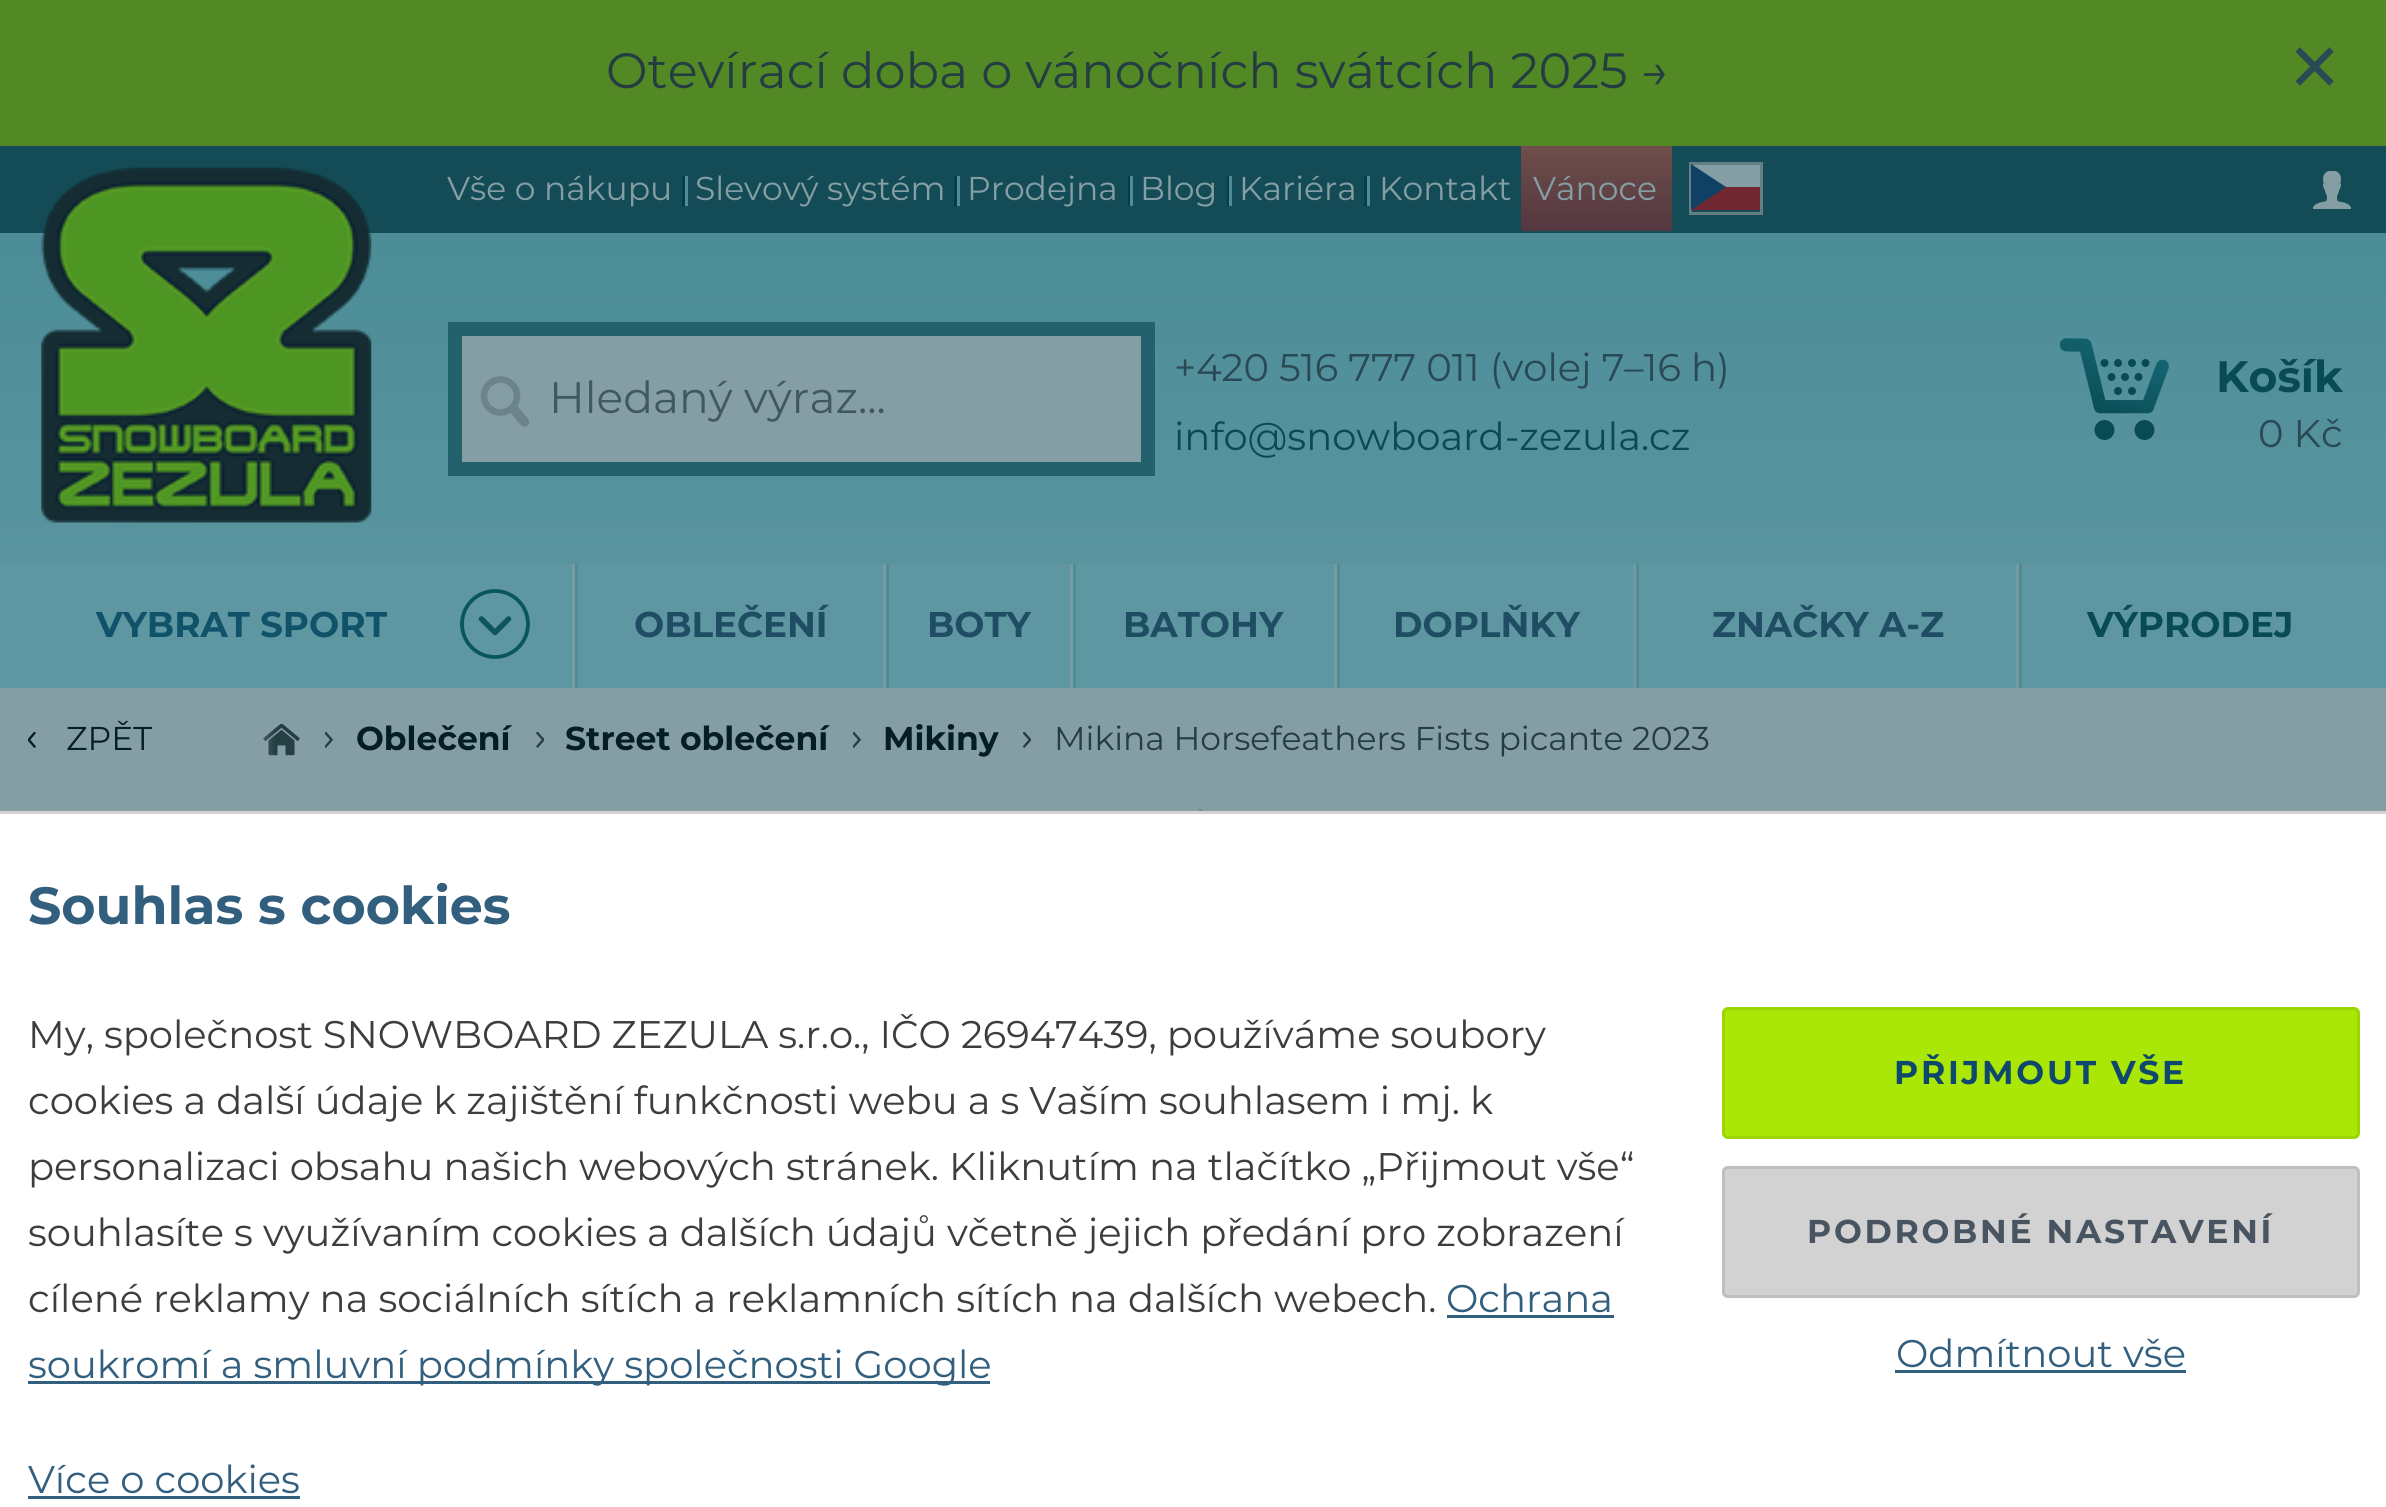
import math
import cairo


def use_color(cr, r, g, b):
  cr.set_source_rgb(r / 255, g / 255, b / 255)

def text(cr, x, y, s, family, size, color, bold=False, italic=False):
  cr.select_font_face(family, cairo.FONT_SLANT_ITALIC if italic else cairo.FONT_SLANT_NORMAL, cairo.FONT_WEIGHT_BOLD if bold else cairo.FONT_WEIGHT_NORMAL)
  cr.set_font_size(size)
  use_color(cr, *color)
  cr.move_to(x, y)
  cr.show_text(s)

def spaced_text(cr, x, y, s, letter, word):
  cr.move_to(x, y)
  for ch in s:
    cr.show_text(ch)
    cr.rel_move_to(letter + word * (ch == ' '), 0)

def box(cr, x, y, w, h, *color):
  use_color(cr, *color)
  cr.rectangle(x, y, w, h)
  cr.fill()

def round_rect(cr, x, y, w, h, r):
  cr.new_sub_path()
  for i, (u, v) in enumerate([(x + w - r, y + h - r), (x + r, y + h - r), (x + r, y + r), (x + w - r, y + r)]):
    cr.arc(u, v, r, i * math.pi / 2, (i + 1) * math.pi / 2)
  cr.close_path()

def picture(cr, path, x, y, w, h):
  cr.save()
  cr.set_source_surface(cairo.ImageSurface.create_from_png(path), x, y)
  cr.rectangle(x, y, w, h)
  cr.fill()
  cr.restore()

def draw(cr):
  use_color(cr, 133, 158, 164)
  cr.paint()
  box(cr, 0, 0, 2386, 146, 83, 137, 37)
  gradient = cairo.LinearGradient(1194, 146, 1194, 688)
  gradient.add_color_stop_rgba(0, 0.075, 0.294, 0.337, 1)
  gradient.add_color_stop_rgba(0.16, 0.075, 0.294, 0.337, 1)
  gradient.add_color_stop_rgba(0.16, 0.298, 0.553, 0.596, 1)
  gradient.add_color_stop_rgba(1, 0.369, 0.592, 0.631, 1)
  cr.set_source(gradient)
  cr.rectangle(0, 146, 2386, 418)
  cr.fill()
  box(cr, 682, 176, 3, 30, 10, 60, 72)
  box(cr, 685, 176, 3, 30, 76, 141, 152)
  box(cr, 954, 176, 3, 30, 10, 60, 72)
  box(cr, 957, 176, 3, 30, 76, 141, 152)
  box(cr, 1128, 176, 2, 30, 10, 60, 72)
  box(cr, 1130, 176, 3, 30, 76, 141, 152)
  box(cr, 1227, 176, 2, 30, 10, 60, 72)
  box(cr, 1229, 176, 3, 30, 76, 141, 152)
  box(cr, 1364, 176, 3, 30, 10, 60, 72)
  box(cr, 1367, 176, 3, 30, 76, 141, 152)
  gradient = cairo.LinearGradient(1596, 146, 1596, 231)
  gradient.add_color_stop_rgba(0, 0.435, 0.306, 0.29, 1)
  gradient.add_color_stop_rgba(1, 0.329, 0.216, 0.251, 1)
  cr.set_source(gradient)
  cr.rectangle(1521, 146, 151, 85)
  cr.fill()
  cr.rectangle(1690.5, 163.5, 71, 50)
  use_color(cr, 101, 126, 132)
  cr.set_line_width(3)
  cr.stroke()
  box(cr, 1691, 187, 69, 23, 113, 40, 49)
  box(cr, 1692, 165, 68, 22, 133, 158, 164)
  use_color(cr, 14, 65, 99)
  cr.new_path()
  cr.move_to(1726, 187)
  cr.line_to(1691, 164)
  cr.line_to(1691, 210)
  cr.close_path()
  cr.fill()
  picture(cr, "img_01.png", 2313, 171, 38, 38)
  picture(cr, "img_02.png", 41, 167, 331, 356)
  use_color(cr, 133, 158, 164)
  cr.rectangle(455, 329, 693, 140)
  cr.fill_preserve()
  use_color(cr, 35, 97, 108)
  cr.set_line_width(14)
  cr.stroke()
  cr.arc(500.5, 396, 16.5, 0, 2 * math.pi)
  use_color(cr, 107, 132, 138)
  cr.set_line_width(6.7)
  cr.stroke()
  cr.new_path()
  cr.move_to(524.5, 422)
  cr.line_to(515, 410.5)
  cr.set_line_width(9.6)
  cr.set_line_cap(cairo.LINE_CAP_ROUND)
  cr.stroke()
  picture(cr, "img_03.png", 2060, 338, 109, 102)
  box(cr, 0, 564, 2386, 124, 94, 151, 161)
  box(cr, 572, 564, 3, 124, 120, 155, 162)
  cr.new_path()
  cr.move_to(508.5, 619)
  cr.line_to(495, 632.5)
  cr.line_to(481.5, 619)
  use_color(cr, 13, 86, 96)
  cr.set_line_width(5.5)
  cr.set_line_join(cairo.LINE_JOIN_ROUND)
  cr.stroke()
  cr.arc(495, 624, 33, 0, 2 * math.pi)
  use_color(cr, 10, 86, 96)
  cr.set_line_width(3.8)
  cr.set_line_cap(cairo.LINE_CAP_BUTT)
  cr.set_line_join(cairo.LINE_JOIN_MITER)
  cr.stroke()
  box(cr, 883, 564, 3, 124, 120, 155, 162)
  box(cr, 575, 564, 3, 124, 76, 141, 152)
  box(cr, 1070, 564, 3, 124, 120, 155, 162)
  box(cr, 886, 564, 3, 124, 76, 141, 152)
  box(cr, 1334, 564, 3, 124, 120, 155, 162)
  box(cr, 1073, 564, 3, 124, 76, 141, 152)
  box(cr, 1634, 564, 2, 124, 120, 155, 162)
  box(cr, 1337, 564, 3, 124, 76, 141, 152)
  box(cr, 2016, 564, 3, 124, 120, 155, 162)
  box(cr, 1636, 564, 3, 124, 76, 141, 152)
  box(cr, 2019, 564, 3, 124, 76, 141, 152)
  picture(cr, "img_04.png", 28, 732, 8, 16)
  picture(cr, "img_05.png", 263, 723, 37, 33)
  gradient = cairo.LinearGradient(234, 740, 275, 740)
  gradient.add_color_stop_rgba(0, 0.522, 0.62, 0.643, 1)
  gradient.add_color_stop_rgba(1, 0.522, 0.62, 0.643, 0)
  cr.set_source(gradient)
  cr.rectangle(263, 730, 11, 25)
  cr.fill()
  picture(cr, "img_06.png", 325, 732, 8, 16)
  picture(cr, "img_07.png", 536, 732, 8, 16)
  picture(cr, "img_06.png", 853, 732, 8, 16)
  picture(cr, "img_08.png", 1023, 732, 8, 16)
  box(cr, 1199, 809, 3, 2, 110, 135, 141)
  box(cr, 0, 814, 2386, 693, 255, 255, 255)
  box(cr, 0, 811, 2386, 3, 210, 210, 210)
  box(cr, 1447, 1315, 167, 3, 51, 95, 127)
  box(cr, 28, 1381, 962, 3, 51, 95, 127)
  box(cr, 28, 1496, 272, 3, 51, 95, 127)
  use_color(cr, 170, 231, 7)
  round_rect(cr, 1723.5, 1008.5, 635, 129, 4.5)
  cr.fill_preserve()
  use_color(cr, 156, 214, 1)
  cr.set_line_width(3)
  cr.stroke()
  use_color(cr, 210, 210, 210)
  round_rect(cr, 1723.5, 1167.5, 635, 129, 4.5)
  cr.fill_preserve()
  use_color(cr, 191, 191, 191)
  cr.stroke()
  box(cr, 1895, 1370, 291, 3, 51, 95, 127)
  text(cr, 606, 88, "Otevírací doba o vánočních svátcích 2025 →", "Montserrat", 49.5, (36, 61, 67))
  text(cr, 2283, 105, "×", "Montserrat", 110, (41, 73, 85))
  text(cr, 447, 200, "Vše o nákupu", "Montserrat", 33, (133, 158, 164))
  text(cr, 695, 200, "Slevový systém", "Montserrat", 33, (133, 158, 164))
  text(cr, 967, 200, "Prodejna", "Montserrat", 33, (133, 158, 164))
  text(cr, 1140, 200, "Blog", "Montserrat", 33, (133, 158, 164))
  text(cr, 1239, 200, "Kariéra", "Montserrat", 33, (133, 158, 164))
  text(cr, 1379, 200, "Kontakt", "Montserrat", 33, (133, 158, 164))
  text(cr, 1533, 200, "Vánoce", "Montserrat", 33, (133, 158, 164))
  text(cr, 549, 413, "Hledaný výraz...", "Montserrat", 44, (64, 89, 95))
  text(cr, 1174, 381, "+420 516 777 011 (volej 7–16 h)", "Montserrat", 38.5, (41, 73, 85))
  text(cr, 1174, 450, "info@snowboard-zezula.cz", "Montserrat", 38.5, (9, 75, 85))
  text(cr, 2216, 392, "Košík", "Montserrat", 44, (9, 75, 85), bold=True)
  text(cr, 2258, 447, "0 Kč", "Montserrat", 38.5, (41, 73, 85))
  text(cr, 96, 637, "VYBRAT SPORT", "Montserrat", 35.75, (16, 82, 106), bold=True)
  text(cr, 634, 637, "OBLEČENÍ", "Montserrat", 35.75, (31, 78, 100), bold=True)
  text(cr, 927, 637, "BOTY", "Montserrat", 35.75, (31, 78, 100), bold=True)
  text(cr, 1123, 637, "BATOHY", "Montserrat", 35.75, (31, 78, 100), bold=True)
  text(cr, 1393, 637, "DOPLŇKY", "Montserrat", 35.75, (31, 78, 100), bold=True)
  text(cr, 1712, 637, "ZNAČKY A-Z", "Montserrat", 35.75, (31, 78, 100), bold=True)
  text(cr, 2087, 637, "VÝPRODEJ", "Montserrat", 35.75, (9, 75, 85), bold=True)
  text(cr, 66, 750, "ZPĚT", "Montserrat", 33, (5, 30, 36))
  text(cr, 356, 750, "Oblečení", "Montserrat", 33, (5, 30, 36), bold=True)
  text(cr, 565, 750, "Street oblečení", "Montserrat", 33, (5, 30, 36), bold=True)
  text(cr, 883, 750, "Mikiny", "Montserrat", 33, (5, 30, 36), bold=True)
  text(cr, 1054, 750, "Mikina Horsefeathers Fists picante 2023", "Montserrat", 33, (36, 61, 67))
  text(cr, 28, 924, "Souhlas s cookies", "Montserrat", 52.25, (51, 95, 127), bold=True)
  text(cr, 28, 1048, "My, společnost SNOWBOARD ZEZULA s.r.o., IČO 26947439, používáme soubory", "Montserrat", 38.5, (61, 61, 61))
  text(cr, 28, 1114, "cookies a další údaje k zajištění funkčnosti webu a s Vaším souhlasem i mj. k", "Montserrat", 38.5, (61, 61, 61))
  text(cr, 28, 1180, "personalizaci obsahu našich webových stránek. Kliknutím na tlačítko „Přijmout vše“", "Montserrat", 38.5, (61, 61, 61))
  text(cr, 28, 1246, "souhlasíte s využívaním cookies a dalších údajů včetně jejich předání pro zobrazení", "Montserrat", 38.5, (61, 61, 61))
  text(cr, 28, 1312, "cílené reklamy na sociálních sítích a reklamních sítích na dalších webech.", "Montserrat", 38.5, (61, 61, 61))
  text(cr, 1446, 1312, "Ochrana", "Montserrat", 38.5, (51, 95, 127))
  text(cr, 28, 1378, "soukromí a smluvní podmínky společnosti Google", "Montserrat", 38.5, (51, 95, 127))
  text(cr, 28, 1493, "Více o cookies", "Montserrat", 38.5, (51, 95, 127))
  cr.select_font_face("Montserrat", cairo.FONT_SLANT_NORMAL, cairo.FONT_WEIGHT_BOLD)
  cr.set_font_size(33)
  use_color(cr, 14, 73, 109)
  spaced_text(cr, 1894, 1084, "PŘIJMOUT VŠE", 2.75, 0)
  use_color(cr, 72, 85, 97)
  spaced_text(cr, 1807, 1243, "PODROBNÉ NASTAVENÍ", 2.75, 0)
  text(cr, 1896, 1367, "Odmítnout vše", "Montserrat", 38.5, (51, 95, 127))


surface = cairo.ImageSurface(cairo.FORMAT_RGB24, 2386, 1507)
cr = cairo.Context(surface)
options = cairo.FontOptions()
options.set_hint_metrics(cairo.HINT_METRICS_OFF)
options.set_hint_style(cairo.HINT_STYLE_NONE)
cr.set_font_options(options)
cr.set_miter_limit(4)
draw(cr)
surface.write_to_png("out.png")
